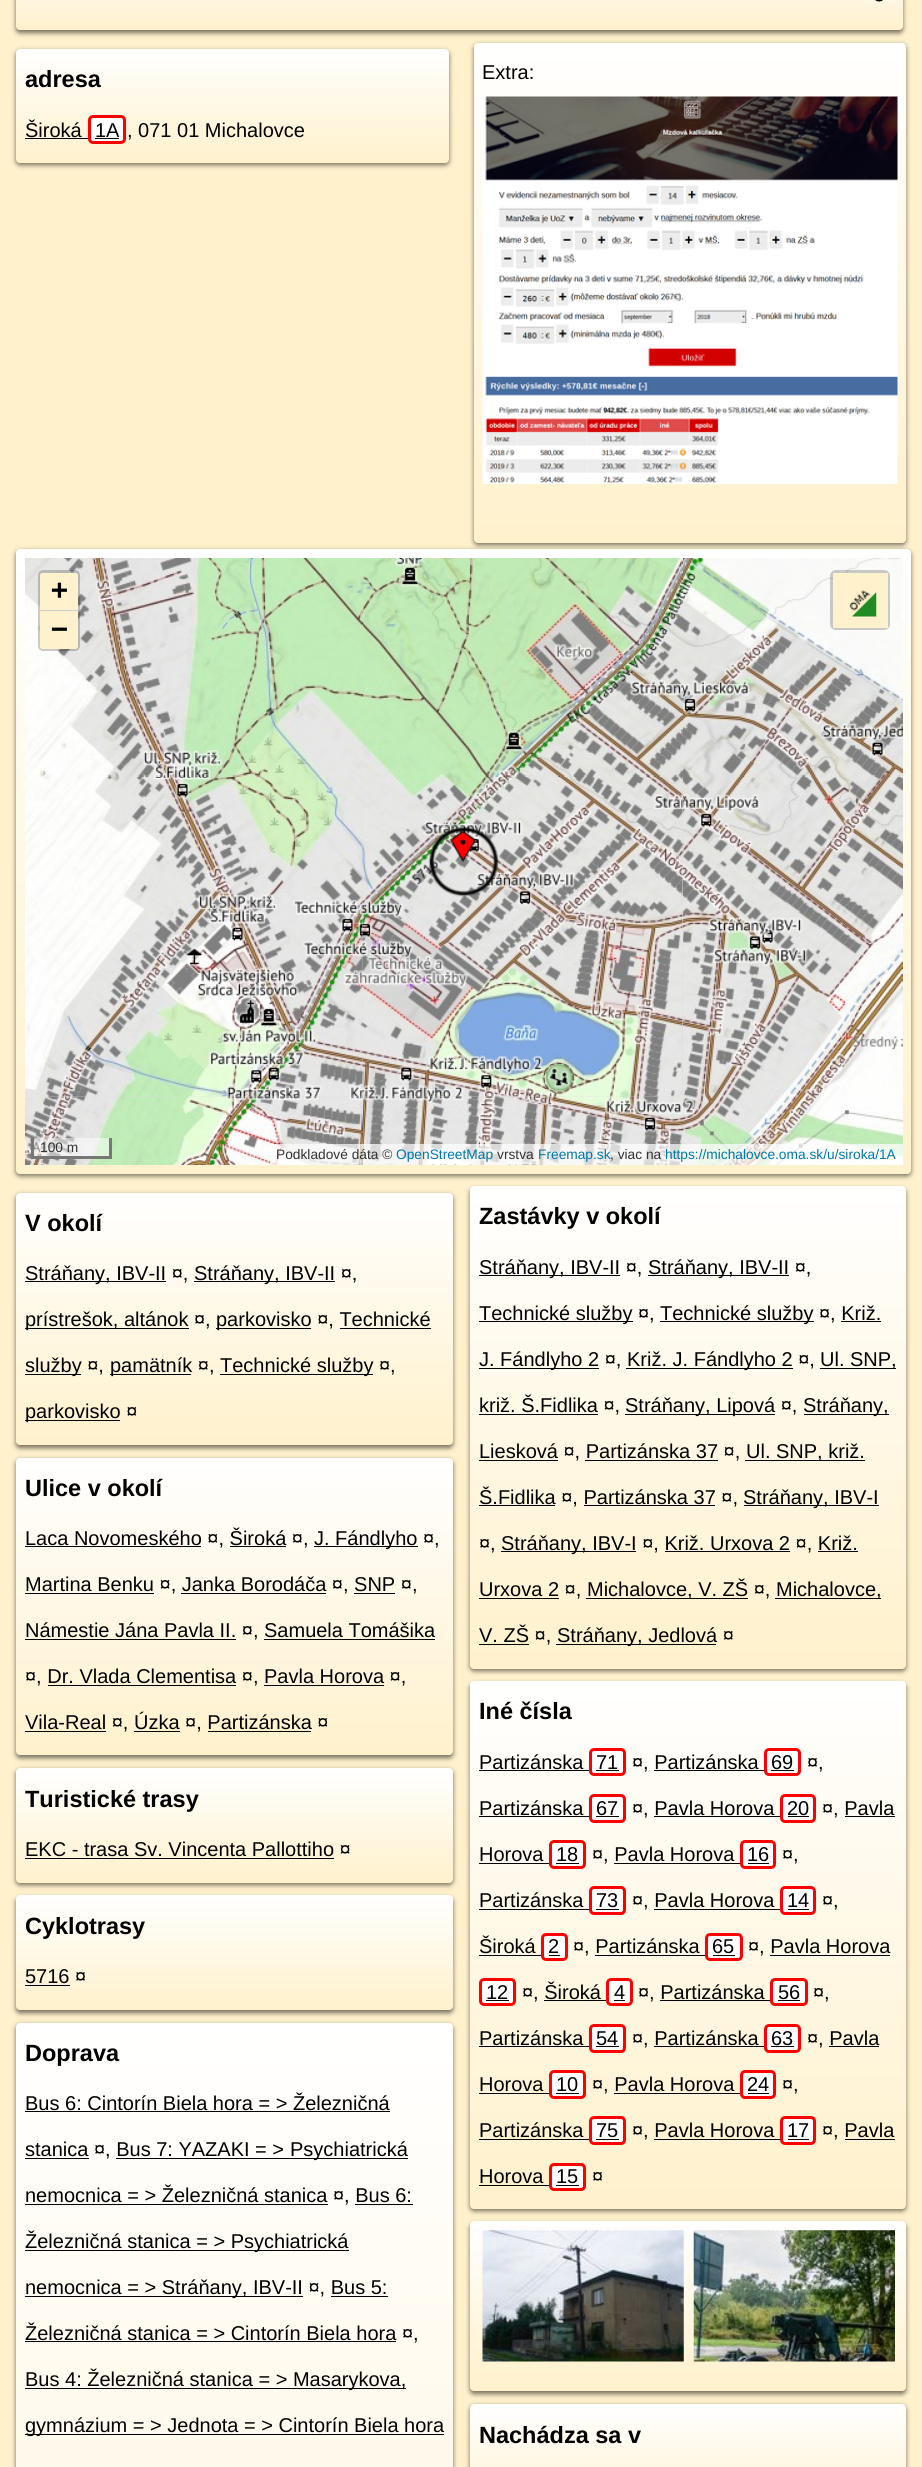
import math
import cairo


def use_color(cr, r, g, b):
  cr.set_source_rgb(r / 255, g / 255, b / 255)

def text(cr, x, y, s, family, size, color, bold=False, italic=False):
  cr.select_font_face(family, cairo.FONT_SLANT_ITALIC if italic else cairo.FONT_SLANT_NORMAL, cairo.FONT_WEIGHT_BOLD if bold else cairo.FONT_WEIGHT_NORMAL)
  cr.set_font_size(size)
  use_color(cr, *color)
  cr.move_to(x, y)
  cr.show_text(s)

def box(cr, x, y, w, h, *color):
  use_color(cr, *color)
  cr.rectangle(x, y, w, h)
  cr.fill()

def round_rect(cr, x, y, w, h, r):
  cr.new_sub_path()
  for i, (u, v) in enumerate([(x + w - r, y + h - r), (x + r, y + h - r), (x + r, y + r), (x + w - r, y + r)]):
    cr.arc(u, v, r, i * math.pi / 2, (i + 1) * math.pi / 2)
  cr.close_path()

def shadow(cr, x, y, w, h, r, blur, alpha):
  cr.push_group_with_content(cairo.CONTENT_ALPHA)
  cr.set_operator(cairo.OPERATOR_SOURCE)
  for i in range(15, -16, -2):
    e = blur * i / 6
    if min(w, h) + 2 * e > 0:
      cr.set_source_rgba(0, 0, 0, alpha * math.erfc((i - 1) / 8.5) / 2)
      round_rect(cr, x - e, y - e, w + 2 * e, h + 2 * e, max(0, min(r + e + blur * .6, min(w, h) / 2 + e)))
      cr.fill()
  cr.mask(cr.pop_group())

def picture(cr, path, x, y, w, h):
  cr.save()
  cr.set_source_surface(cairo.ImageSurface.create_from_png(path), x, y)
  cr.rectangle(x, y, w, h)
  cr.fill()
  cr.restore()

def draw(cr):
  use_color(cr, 255, 241, 204)
  cr.paint()
  use_color(cr, 0, 0, 0)
  shadow(cr, 16, -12, 887, 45, 4, 2.5, 0.55)
  gradient = cairo.LinearGradient(459, -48, 459, 30)
  gradient.add_color_stop_rgba(0, 1, 1, 1, 1)
  gradient.add_color_stop_rgba(1, 1, 0.945, 0.8, 1)
  cr.set_source(gradient)
  round_rect(cr, 16, -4, 887, 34, 4)
  cr.fill()
  picture(cr, "img_01.png", 875, 0, 8, 2)
  use_color(cr, 0, 0, 0)
  shadow(cr, 16, 51, 433, 114, 4, 2.5, 0.55)
  gradient = cairo.LinearGradient(233, 49, 233, 163)
  gradient.add_color_stop_rgba(0, 1, 1, 1, 1)
  gradient.add_color_stop_rgba(1, 1, 0.945, 0.8, 1)
  cr.set_source(gradient)
  round_rect(cr, 16, 49, 433, 114, 4)
  cr.fill()
  box(cr, 25, 138, 63, 1, 0, 0, 0)
  use_color(cr, 255, 255, 255)
  round_rect(cr, 89.5, 116.5, 35, 26, 3.5)
  cr.fill_preserve()
  use_color(cr, 255, 0, 0)
  cr.set_line_width(3)
  cr.stroke()
  box(cr, 95, 138, 24, 1, 0, 0, 0)
  use_color(cr, 0, 0, 0)
  shadow(cr, 474, 45, 432, 500, 4, 2.5, 0.55)
  gradient = cairo.LinearGradient(690, 42, 690, 543)
  gradient.add_color_stop_rgba(0, 1, 1, 1, 1)
  gradient.add_color_stop_rgba(1, 1, 0.945, 0.8, 1)
  cr.set_source(gradient)
  round_rect(cr, 474, 43, 432, 500, 4)
  cr.fill()
  picture(cr, "img_02.png", 482, 96, 416, 388)
  use_color(cr, 0, 0, 0)
  shadow(cr, 16, 551, 895, 625, 4, 2.5, 0.55)
  gradient = cairo.LinearGradient(464, 549, 464, 1174)
  gradient.add_color_stop_rgba(0, 1, 1, 1, 1)
  gradient.add_color_stop_rgba(1, 1, 0.945, 0.8, 1)
  cr.set_source(gradient)
  round_rect(cr, 16, 549, 895, 625, 4)
  cr.fill()
  box(cr, 43, 777, 640, 320, 221, 221, 221)
  picture(cr, "img_03.png", 25, 558, 18, 219)
  picture(cr, "img_04.png", 43, 558, 320, 219)
  picture(cr, "img_05.png", 363, 558, 320, 219)
  picture(cr, "img_06.png", 683, 558, 220, 219)
  picture(cr, "img_07.png", 25, 777, 18, 320)
  picture(cr, "img_08.png", 43, 777, 320, 320)
  picture(cr, "img_09.png", 362, 777, 321, 320)
  picture(cr, "img_10.png", 683, 777, 220, 320)
  picture(cr, "img_11.png", 25, 1097, 18, 68)
  picture(cr, "img_12.png", 43, 1096, 320, 69)
  picture(cr, "img_13.png", 363, 1096, 320, 69)
  picture(cr, "img_14.png", 683, 1096, 220, 69)
  picture(cr, "img_15.png", 428, 826, 71, 71)
  picture(cr, "img_16.png", 450, 830, 27, 32)
  round_rect(cr, 39.5, 571.5, 39, 78, 3.5)
  cr.set_source_rgba(0, 0, 0, 0.2)
  cr.stroke()
  use_color(cr, 255, 241, 204)
  cr.new_path()
  cr.move_to(42.5, 573)
  cr.line_to(75.5, 573)
  cr.curve_to(77, 573, 78, 574, 78, 575.5)
  cr.line_to(78, 611)
  cr.line_to(40, 611)
  cr.line_to(40, 575.5)
  cr.curve_to(40, 574, 41, 573, 42.5, 573)
  cr.close_path()
  cr.fill()
  box(cr, 40, 610, 38, 1, 204, 204, 204)
  use_color(cr, 255, 241, 204)
  cr.new_path()
  cr.move_to(40, 611)
  cr.line_to(78, 611)
  cr.line_to(78, 646.5)
  cr.curve_to(78, 648, 77, 649, 75.5, 649)
  cr.line_to(42.5, 649)
  cr.curve_to(41, 649, 40, 648, 40, 646.5)
  cr.close_path()
  cr.fill()
  round_rect(cr, 831.5, 571.5, 57, 57, 4.5)
  cr.set_source_rgba(0, 0, 0, 0.2)
  cr.stroke()
  box(cr, 833, 573, 55, 55, 255, 241, 204)
  picture(cr, "img_17.png", 849, 590, 28, 27)
  cr.set_source_rgba(1, 1, 1, 0.5)
  cr.rectangle(34, 1138, 75, 18)
  cr.fill()
  box(cr, 109, 1138, 3, 21, 119, 119, 119)
  box(cr, 31, 1156, 80, 3, 119, 119, 119)
  box(cr, 31, 1138, 3, 21, 119, 119, 119)
  cr.set_source_rgba(1, 1, 1, 0.7)
  cr.rectangle(270, 1144, 633, 21)
  cr.fill()
  use_color(cr, 0, 0, 0)
  shadow(cr, 16, 1195, 437, 253, 4, 2.5, 0.55)
  gradient = cairo.LinearGradient(234, 1193, 234, 1445)
  gradient.add_color_stop_rgba(0, 1, 1, 1, 1)
  gradient.add_color_stop_rgba(1, 1, 0.945, 0.8, 1)
  cr.set_source(gradient)
  round_rect(cr, 16, 1193, 437, 252, 4)
  cr.fill()
  box(cr, 25, 1281, 141, 1, 0, 0, 0)
  box(cr, 194, 1281, 141, 1, 0, 0, 0)
  box(cr, 25, 1328, 164, 1, 0, 0, 0)
  box(cr, 216, 1328, 95, 1, 0, 0, 0)
  box(cr, 340, 1328, 91, 1, 0, 0, 0)
  box(cr, 25, 1374, 56, 1, 0, 0, 0)
  box(cr, 110, 1374, 81, 1, 0, 0, 0)
  box(cr, 220, 1374, 153, 1, 0, 0, 0)
  box(cr, 25, 1420, 95, 1, 0, 0, 0)
  use_color(cr, 0, 0, 0)
  shadow(cr, 470, 1189, 436, 482, 4, 2.5, 0.55)
  gradient = cairo.LinearGradient(688, 1186, 688, 1669)
  gradient.add_color_stop_rgba(0, 1, 1, 1, 1)
  gradient.add_color_stop_rgba(1, 1, 0.945, 0.8, 1)
  cr.set_source(gradient)
  round_rect(cr, 470, 1186, 436, 483, 4)
  cr.fill()
  box(cr, 479, 1275, 141, 1, 0, 0, 0)
  box(cr, 648, 1275, 141, 1, 0, 0, 0)
  box(cr, 479, 1321, 154, 1, 0, 0, 0)
  box(cr, 660, 1321, 154, 1, 0, 0, 0)
  box(cr, 841, 1321, 40, 1, 0, 0, 0)
  box(cr, 479, 1368, 120, 1, 0, 0, 0)
  box(cr, 626, 1368, 167, 1, 0, 0, 0)
  box(cr, 820, 1368, 76, 1, 0, 0, 0)
  box(cr, 479, 1414, 119, 1, 0, 0, 0)
  box(cr, 625, 1414, 150, 1, 0, 0, 0)
  box(cr, 804, 1414, 85, 1, 0, 0, 0)
  box(cr, 479, 1460, 79, 1, 0, 0, 0)
  box(cr, 745, 1460, 120, 1, 0, 0, 0)
  box(cr, 585, 1460, 133, 1, 0, 0, 0)
  box(cr, 479, 1505, 76, 1, 0, 0, 0)
  box(cr, 744, 1505, 135, 1, 0, 0, 0)
  box(cr, 584, 1505, 131, 1, 0, 0, 0)
  box(cr, 501, 1551, 135, 1, 0, 0, 0)
  box(cr, 665, 1551, 125, 1, 0, 0, 0)
  box(cr, 818, 1551, 40, 1, 0, 0, 0)
  box(cr, 479, 1598, 80, 1, 0, 0, 0)
  box(cr, 586, 1598, 162, 1, 0, 0, 0)
  box(cr, 775, 1598, 106, 1, 0, 0, 0)
  box(cr, 479, 1644, 50, 1, 0, 0, 0)
  box(cr, 556, 1644, 160, 1, 0, 0, 0)
  use_color(cr, 0, 0, 0)
  shadow(cr, 16, 1460, 437, 298, 4, 2.5, 0.55)
  gradient = cairo.LinearGradient(234, 1458, 234, 1755)
  gradient.add_color_stop_rgba(0, 1, 1, 1, 1)
  gradient.add_color_stop_rgba(1, 1, 0.945, 0.8, 1)
  cr.set_source(gradient)
  round_rect(cr, 16, 1458, 437, 297, 4)
  cr.fill()
  box(cr, 25, 1546, 176, 1, 0, 0, 0)
  box(cr, 314, 1546, 104, 1, 0, 0, 0)
  box(cr, 230, 1546, 56, 1, 0, 0, 0)
  box(cr, 25, 1593, 129, 1, 0, 0, 0)
  box(cr, 181, 1593, 145, 1, 0, 0, 0)
  box(cr, 354, 1593, 41, 1, 0, 0, 0)
  box(cr, 25, 1639, 211, 1, 0, 0, 0)
  box(cr, 264, 1639, 171, 1, 0, 0, 0)
  box(cr, 48, 1685, 188, 1, 0, 0, 0)
  box(cr, 264, 1685, 120, 1, 0, 0, 0)
  box(cr, 25, 1731, 81, 1, 0, 0, 0)
  box(cr, 134, 1731, 46, 1, 0, 0, 0)
  box(cr, 208, 1731, 103, 1, 0, 0, 0)
  use_color(cr, 0, 0, 0)
  shadow(cr, 16, 1770, 437, 115, 4, 2.5, 0.55)
  gradient = cairo.LinearGradient(234, 1768, 234, 1883)
  gradient.add_color_stop_rgba(0, 1, 1, 1, 1)
  gradient.add_color_stop_rgba(1, 1, 0.945, 0.8, 1)
  cr.set_source(gradient)
  round_rect(cr, 16, 1768, 437, 115, 4)
  cr.fill()
  box(cr, 25, 1858, 309, 1, 0, 0, 0)
  use_color(cr, 0, 0, 0)
  shadow(cr, 470, 1684, 436, 527, 4, 2.5, 0.55)
  gradient = cairo.LinearGradient(688, 1681, 688, 2209)
  gradient.add_color_stop_rgba(0, 1, 1, 1, 1)
  gradient.add_color_stop_rgba(1, 1, 0.945, 0.8, 1)
  cr.set_source(gradient)
  round_rect(cr, 470, 1681, 436, 528, 4)
  cr.fill()
  box(cr, 479, 1770, 110, 1, 0, 0, 0)
  use_color(cr, 255, 255, 255)
  round_rect(cr, 590.5, 1749.5, 34, 25, 3.5)
  cr.fill_preserve()
  use_color(cr, 255, 0, 0)
  cr.stroke()
  box(cr, 596, 1770, 23, 1, 0, 0, 0)
  box(cr, 654, 1770, 110, 1, 0, 0, 0)
  use_color(cr, 255, 255, 255)
  round_rect(cr, 765.5, 1749.5, 34, 25, 3.5)
  cr.fill_preserve()
  use_color(cr, 255, 0, 0)
  cr.stroke()
  box(cr, 771, 1770, 23, 1, 0, 0, 0)
  box(cr, 479, 1816, 110, 1, 0, 0, 0)
  use_color(cr, 255, 255, 255)
  round_rect(cr, 590.5, 1795.5, 34, 26, 3.5)
  cr.fill_preserve()
  use_color(cr, 255, 0, 0)
  cr.stroke()
  box(cr, 596, 1816, 23, 1, 0, 0, 0)
  box(cr, 654, 1816, 126, 1, 0, 0, 0)
  use_color(cr, 255, 255, 255)
  round_rect(cr, 781.5, 1795.5, 33, 26, 3.5)
  cr.fill_preserve()
  use_color(cr, 255, 0, 0)
  cr.stroke()
  box(cr, 788, 1816, 21, 1, 0, 0, 0)
  box(cr, 479, 1863, 70, 1, 0, 0, 0)
  box(cr, 845, 1816, 50, 1, 0, 0, 0)
  use_color(cr, 255, 255, 255)
  round_rect(cr, 550.5, 1841.5, 34, 26, 3.5)
  cr.fill_preserve()
  use_color(cr, 255, 0, 0)
  cr.stroke()
  box(cr, 556, 1863, 23, 1, 0, 0, 0)
  box(cr, 614, 1863, 126, 1, 0, 0, 0)
  use_color(cr, 255, 255, 255)
  round_rect(cr, 741.5, 1841.5, 33, 26, 3.5)
  cr.fill_preserve()
  use_color(cr, 255, 0, 0)
  cr.stroke()
  box(cr, 748, 1863, 21, 1, 0, 0, 0)
  box(cr, 479, 1909, 110, 1, 0, 0, 0)
  use_color(cr, 255, 255, 255)
  round_rect(cr, 590.5, 1887.5, 34, 26, 3.5)
  cr.fill_preserve()
  use_color(cr, 255, 0, 0)
  cr.stroke()
  box(cr, 596, 1909, 23, 1, 0, 0, 0)
  box(cr, 654, 1909, 126, 1, 0, 0, 0)
  use_color(cr, 255, 255, 255)
  round_rect(cr, 781.5, 1887.5, 33, 26, 3.5)
  cr.fill_preserve()
  use_color(cr, 255, 0, 0)
  cr.stroke()
  box(cr, 788, 1909, 21, 1, 0, 0, 0)
  box(cr, 479, 1955, 62, 1, 0, 0, 0)
  use_color(cr, 255, 255, 255)
  round_rect(cr, 542.5, 1934.5, 24, 25, 3.5)
  cr.fill_preserve()
  use_color(cr, 255, 0, 0)
  cr.stroke()
  box(cr, 549, 1955, 11, 1, 0, 0, 0)
  box(cr, 595, 1955, 110, 1, 0, 0, 0)
  use_color(cr, 255, 255, 255)
  round_rect(cr, 706.5, 1934.5, 35, 25, 3.5)
  cr.fill_preserve()
  use_color(cr, 255, 0, 0)
  cr.stroke()
  box(cr, 713, 1955, 22, 1, 0, 0, 0)
  box(cr, 770, 1955, 120, 1, 0, 0, 0)
  use_color(cr, 255, 255, 255)
  round_rect(cr, 480.5, 1979.5, 34, 25, 3.5)
  cr.fill_preserve()
  use_color(cr, 255, 0, 0)
  cr.stroke()
  box(cr, 486, 2000, 23, 1, 0, 0, 0)
  box(cr, 544, 2000, 62, 1, 0, 0, 0)
  use_color(cr, 255, 255, 255)
  round_rect(cr, 607.5, 1979.5, 24, 25, 3.5)
  cr.fill_preserve()
  use_color(cr, 255, 0, 0)
  cr.stroke()
  box(cr, 614, 2000, 11, 1, 0, 0, 0)
  box(cr, 660, 2000, 110, 1, 0, 0, 0)
  use_color(cr, 255, 255, 255)
  round_rect(cr, 771.5, 1979.5, 35, 25, 3.5)
  cr.fill_preserve()
  use_color(cr, 255, 0, 0)
  cr.stroke()
  box(cr, 778, 2000, 22, 1, 0, 0, 0)
  box(cr, 479, 2046, 110, 1, 0, 0, 0)
  use_color(cr, 255, 255, 255)
  round_rect(cr, 590.5, 2025.5, 34, 26, 3.5)
  cr.fill_preserve()
  use_color(cr, 255, 0, 0)
  cr.stroke()
  box(cr, 596, 2046, 23, 1, 0, 0, 0)
  box(cr, 654, 2046, 110, 1, 0, 0, 0)
  use_color(cr, 255, 255, 255)
  round_rect(cr, 765.5, 2025.5, 34, 26, 3.5)
  cr.fill_preserve()
  use_color(cr, 255, 0, 0)
  cr.stroke()
  box(cr, 771, 2046, 23, 1, 0, 0, 0)
  box(cr, 479, 2093, 70, 1, 0, 0, 0)
  box(cr, 829, 2046, 50, 1, 0, 0, 0)
  use_color(cr, 255, 255, 255)
  round_rect(cr, 550.5, 2071.5, 34, 26, 3.5)
  cr.fill_preserve()
  use_color(cr, 255, 0, 0)
  cr.stroke()
  box(cr, 556, 2093, 23, 1, 0, 0, 0)
  box(cr, 614, 2093, 126, 1, 0, 0, 0)
  use_color(cr, 255, 255, 255)
  round_rect(cr, 741.5, 2071.5, 33, 26, 3.5)
  cr.fill_preserve()
  use_color(cr, 255, 0, 0)
  cr.stroke()
  box(cr, 748, 2093, 21, 1, 0, 0, 0)
  box(cr, 479, 2139, 110, 1, 0, 0, 0)
  use_color(cr, 255, 255, 255)
  round_rect(cr, 590.5, 2117.5, 34, 26, 3.5)
  cr.fill_preserve()
  use_color(cr, 255, 0, 0)
  cr.stroke()
  box(cr, 596, 2139, 23, 1, 0, 0, 0)
  box(cr, 654, 2139, 126, 1, 0, 0, 0)
  use_color(cr, 255, 255, 255)
  round_rect(cr, 781.5, 2117.5, 33, 26, 3.5)
  cr.fill_preserve()
  use_color(cr, 255, 0, 0)
  cr.stroke()
  box(cr, 788, 2139, 21, 1, 0, 0, 0)
  box(cr, 479, 2185, 70, 1, 0, 0, 0)
  box(cr, 845, 2139, 50, 1, 0, 0, 0)
  use_color(cr, 255, 255, 255)
  round_rect(cr, 550.5, 2164.5, 34, 25, 3.5)
  cr.fill_preserve()
  use_color(cr, 255, 0, 0)
  cr.stroke()
  box(cr, 556, 2185, 23, 1, 0, 0, 0)
  use_color(cr, 0, 0, 0)
  shadow(cr, 16, 1898, 437, 115, 4, 2.5, 0.55)
  gradient = cairo.LinearGradient(234, 1895, 234, 2010)
  gradient.add_color_stop_rgba(0, 1, 1, 1, 1)
  gradient.add_color_stop_rgba(1, 1, 0.945, 0.8, 1)
  cr.set_source(gradient)
  round_rect(cr, 16, 1895, 437, 115, 4)
  cr.fill()
  box(cr, 25, 1985, 45, 1, 0, 0, 0)
  use_color(cr, 0, 0, 0)
  shadow(cr, 16, 2025, 437, 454, 4, 2.5, 0.55)
  gradient = cairo.LinearGradient(234, 2023, 234, 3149)
  gradient.add_color_stop_rgba(0, 1, 1, 1, 1)
  gradient.add_color_stop_rgba(1, 1, 0.945, 0.8, 1)
  cr.set_source(gradient)
  round_rect(cr, 16, 2023, 437, 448, 4)
  cr.fill()
  box(cr, 25, 2111, 365, 1, 0, 0, 0)
  box(cr, 25, 2158, 64, 1, 0, 0, 0)
  box(cr, 116, 2158, 292, 1, 0, 0, 0)
  box(cr, 25, 2204, 303, 1, 0, 0, 0)
  box(cr, 355, 2204, 58, 1, 0, 0, 0)
  box(cr, 25, 2250, 324, 1, 0, 0, 0)
  box(cr, 25, 2296, 278, 1, 0, 0, 0)
  box(cr, 331, 2296, 57, 1, 0, 0, 0)
  box(cr, 25, 2341, 371, 1, 0, 0, 0)
  box(cr, 25, 2388, 381, 1, 0, 0, 0)
  box(cr, 25, 2434, 419, 1, 0, 0, 0)
  use_color(cr, 0, 0, 0)
  shadow(cr, 470, 2224, 436, 170, 4, 2.5, 0.55)
  gradient = cairo.LinearGradient(688, 2221, 688, 2391)
  gradient.add_color_stop_rgba(0, 1, 1, 1, 1)
  gradient.add_color_stop_rgba(1, 1, 0.945, 0.8, 1)
  cr.set_source(gradient)
  round_rect(cr, 470, 2221, 436, 170, 4)
  cr.fill()
  picture(cr, "img_18.png", 482, 2230, 202, 132)
  picture(cr, "img_19.png", 693, 2230, 202, 132)
  use_color(cr, 0, 0, 0)
  shadow(cr, 470, 2406, 436, 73, 4, 2.5, 0.55)
  gradient = cairo.LinearGradient(688, 2404, 688, 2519)
  gradient.add_color_stop_rgba(0, 1, 1, 1, 1)
  gradient.add_color_stop_rgba(1, 1, 0.945, 0.8, 1)
  cr.set_source(gradient)
  round_rect(cr, 470, 2404, 436, 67, 4)
  cr.fill()
  text(cr, 25, 87, "adresa", "Liberation Sans", 23.5, (0, 0, 0), bold=True)
  text(cr, 25, 137, "Široká", "Liberation Sans", 20, (0, 0, 0))
  text(cr, 95, 137, "1A", "Liberation Sans", 20, (0, 0, 0))
  text(cr, 127, 137, ", 071 01 Michalovce", "Liberation Sans", 20, (0, 0, 0))
  text(cr, 482, 79, "Extra:", "Liberation Sans", 20, (0, 0, 0))
  text(cr, 51, 599, "+", "DejaVu Sans Mono", 28, (0, 0, 0), bold=True)
  text(cr, 51, 638, "−", "DejaVu Sans Mono", 28, (0, 0, 0), bold=True)
  text(cr, 40, 1152, "100 m", "Liberation Sans", 13.75, (51, 51, 51))
  text(cr, 276, 1159, "Podkladové dáta ©", "Liberation Sans", 13.75, (51, 51, 51))
  text(cr, 396, 1159, "OpenStreetMap", "Liberation Sans", 13.75, (0, 120, 168))
  text(cr, 497, 1159, "vrstva", "Liberation Sans", 13.75, (51, 51, 51))
  text(cr, 538, 1159, "Freemap.sk", "Liberation Sans", 13.75, (0, 120, 168))
  text(cr, 610, 1159, ", viac na", "Liberation Sans", 13.75, (51, 51, 51))
  text(cr, 665, 1159, "https://michalovce.oma.sk/u/siroka/1A", "Liberation Sans", 13.75, (0, 120, 168))
  text(cr, 25, 1231, "V okolí", "Liberation Sans", 23.5, (0, 0, 0), bold=True)
  text(cr, 25, 1280, "Stráňany, IBV-II ¤,", "Liberation Sans", 20, (0, 0, 0))
  text(cr, 194, 1280, "Stráňany, IBV-II ¤,", "Liberation Sans", 20, (0, 0, 0))
  text(cr, 25, 1326, "prístrešok, altánok ¤,", "Liberation Sans", 20, (0, 0, 0))
  text(cr, 216, 1326, "parkovisko ¤, Technické", "Liberation Sans", 20, (0, 0, 0))
  text(cr, 25, 1372, "služby ¤,", "Liberation Sans", 20, (0, 0, 0))
  text(cr, 110, 1372, "pamätník ¤,", "Liberation Sans", 20, (0, 0, 0))
  text(cr, 220, 1372, "Technické služby ¤,", "Liberation Sans", 20, (0, 0, 0))
  text(cr, 25, 1418, "parkovisko ¤", "Liberation Sans", 20, (0, 0, 0))
  text(cr, 479, 1224, "Zastávky v okolí", "Liberation Sans", 23.5, (0, 0, 0), bold=True)
  text(cr, 479, 1274, "Stráňany, IBV-II ¤,", "Liberation Sans", 20, (0, 0, 0))
  text(cr, 648, 1274, "Stráňany, IBV-II ¤,", "Liberation Sans", 20, (0, 0, 0))
  text(cr, 479, 1320, "Technické služby ¤,", "Liberation Sans", 20, (0, 0, 0))
  text(cr, 660, 1320, "Technické služby ¤, Križ.", "Liberation Sans", 20, (0, 0, 0))
  text(cr, 479, 1366, "J. Fándlyho 2 ¤,", "Liberation Sans", 20, (0, 0, 0))
  text(cr, 627, 1366, "Križ. J. Fándlyho 2 ¤,", "Liberation Sans", 20, (0, 0, 0))
  text(cr, 820, 1366, "Ul. SNP,", "Liberation Sans", 20, (0, 0, 0))
  text(cr, 479, 1412, "križ. Š.Fidlika ¤,", "Liberation Sans", 20, (0, 0, 0))
  text(cr, 625, 1412, "Stráňany, Lipová ¤,", "Liberation Sans", 20, (0, 0, 0))
  text(cr, 803, 1412, "Stráňany,", "Liberation Sans", 20, (0, 0, 0))
  text(cr, 479, 1458, "Liesková ¤, Partizánska 37 ¤,", "Liberation Sans", 20, (0, 0, 0))
  text(cr, 746, 1458, "Ul. SNP, križ.", "Liberation Sans", 20, (0, 0, 0))
  text(cr, 479, 1504, "Š.Fidlika ¤, Partizánska 37 ¤,", "Liberation Sans", 20, (0, 0, 0))
  text(cr, 743, 1504, "Stráňany, IBV-I", "Liberation Sans", 20, (0, 0, 0))
  text(cr, 479, 1550, "¤,", "Liberation Sans", 20, (0, 0, 0))
  text(cr, 501, 1550, "Stráňany, IBV-I ¤, Križ. Urxova 2 ¤, Križ.", "Liberation Sans", 20, (0, 0, 0))
  text(cr, 479, 1596, "Urxova 2 ¤,", "Liberation Sans", 20, (0, 0, 0))
  text(cr, 587, 1596, "Michalovce, V. ZŠ ¤,", "Liberation Sans", 20, (0, 0, 0))
  text(cr, 776, 1596, "Michalovce,", "Liberation Sans", 20, (0, 0, 0))
  text(cr, 479, 1642, "V. ZŠ ¤,", "Liberation Sans", 20, (0, 0, 0))
  text(cr, 557, 1642, "Stráňany, Jedlová ¤", "Liberation Sans", 20, (0, 0, 0))
  text(cr, 25, 1496, "Ulice v okolí", "Liberation Sans", 23.5, (0, 0, 0), bold=True)
  text(cr, 25, 1545, "Laca Novomeského ¤, Široká ¤,", "Liberation Sans", 20, (0, 0, 0))
  text(cr, 314, 1545, "J. Fándlyho ¤,", "Liberation Sans", 20, (0, 0, 0))
  text(cr, 25, 1591, "Martina Benku ¤, Janka Borodáča ¤, SNP ¤,", "Liberation Sans", 20, (0, 0, 0))
  text(cr, 25, 1637, "Námestie Jána Pavla II. ¤, Samuela Tomášika", "Liberation Sans", 20, (0, 0, 0))
  text(cr, 25, 1683, "¤, Dr. Vlada Clementisa ¤, Pavla Horova ¤,", "Liberation Sans", 20, (0, 0, 0))
  text(cr, 25, 1729, "Vila-Real ¤, Úzka ¤, Partizánska ¤", "Liberation Sans", 20, (0, 0, 0))
  text(cr, 25, 1807, "Turistické trasy", "Liberation Sans", 23.5, (0, 0, 0), bold=True)
  text(cr, 25, 1856, "EKC - trasa Sv. Vincenta Pallottiho ¤", "Liberation Sans", 20, (0, 0, 0))
  text(cr, 479, 1719, "Iné čísla", "Liberation Sans", 23.5, (0, 0, 0), bold=True)
  text(cr, 479, 1769, "Partizánska", "Liberation Sans", 20, (0, 0, 0))
  text(cr, 596, 1769, "71", "Liberation Sans", 20, (0, 0, 0))
  text(cr, 632, 1769, "¤, Partizánska", "Liberation Sans", 20, (0, 0, 0))
  text(cr, 771, 1769, "69", "Liberation Sans", 20, (0, 0, 0))
  text(cr, 807, 1769, "¤,", "Liberation Sans", 20, (0, 0, 0))
  text(cr, 479, 1815, "Partizánska", "Liberation Sans", 20, (0, 0, 0))
  text(cr, 596, 1815, "67", "Liberation Sans", 20, (0, 0, 0))
  text(cr, 632, 1815, "¤, Pavla Horova", "Liberation Sans", 20, (0, 0, 0))
  text(cr, 787, 1815, "20", "Liberation Sans", 20, (0, 0, 0))
  text(cr, 822, 1815, "¤, Pavla", "Liberation Sans", 20, (0, 0, 0))
  text(cr, 479, 1861, "Horova", "Liberation Sans", 20, (0, 0, 0))
  text(cr, 556, 1861, "18", "Liberation Sans", 20, (0, 0, 0))
  text(cr, 592, 1861, "¤, Pavla Horova", "Liberation Sans", 20, (0, 0, 0))
  text(cr, 747, 1861, "16", "Liberation Sans", 20, (0, 0, 0))
  text(cr, 782, 1861, "¤,", "Liberation Sans", 20, (0, 0, 0))
  text(cr, 479, 1907, "Partizánska", "Liberation Sans", 20, (0, 0, 0))
  text(cr, 596, 1907, "73", "Liberation Sans", 20, (0, 0, 0))
  text(cr, 632, 1907, "¤, Pavla Horova", "Liberation Sans", 20, (0, 0, 0))
  text(cr, 787, 1907, "14", "Liberation Sans", 20, (0, 0, 0))
  text(cr, 822, 1907, "¤,", "Liberation Sans", 20, (0, 0, 0))
  text(cr, 479, 1953, "Široká", "Liberation Sans", 20, (0, 0, 0))
  text(cr, 548, 1953, "2", "Liberation Sans", 20, (0, 0, 0))
  text(cr, 573, 1953, "¤, Partizánska", "Liberation Sans", 20, (0, 0, 0))
  text(cr, 712, 1953, "65", "Liberation Sans", 20, (0, 0, 0))
  text(cr, 748, 1953, "¤, Pavla Horova", "Liberation Sans", 20, (0, 0, 0))
  text(cr, 486, 1999, "12", "Liberation Sans", 20, (0, 0, 0))
  text(cr, 522, 1999, "¤, Široká", "Liberation Sans", 20, (0, 0, 0))
  text(cr, 614, 1999, "4", "Liberation Sans", 20, (0, 0, 0))
  text(cr, 638, 1999, "¤, Partizánska", "Liberation Sans", 20, (0, 0, 0))
  text(cr, 778, 1999, "56", "Liberation Sans", 20, (0, 0, 0))
  text(cr, 813, 1999, "¤,", "Liberation Sans", 20, (0, 0, 0))
  text(cr, 479, 2045, "Partizánska", "Liberation Sans", 20, (0, 0, 0))
  text(cr, 596, 2045, "54", "Liberation Sans", 20, (0, 0, 0))
  text(cr, 632, 2045, "¤, Partizánska", "Liberation Sans", 20, (0, 0, 0))
  text(cr, 771, 2045, "63", "Liberation Sans", 20, (0, 0, 0))
  text(cr, 807, 2045, "¤, Pavla", "Liberation Sans", 20, (0, 0, 0))
  text(cr, 479, 2091, "Horova", "Liberation Sans", 20, (0, 0, 0))
  text(cr, 556, 2091, "10", "Liberation Sans", 20, (0, 0, 0))
  text(cr, 592, 2091, "¤, Pavla Horova", "Liberation Sans", 20, (0, 0, 0))
  text(cr, 747, 2091, "24", "Liberation Sans", 20, (0, 0, 0))
  text(cr, 782, 2091, "¤,", "Liberation Sans", 20, (0, 0, 0))
  text(cr, 479, 2137, "Partizánska", "Liberation Sans", 20, (0, 0, 0))
  text(cr, 596, 2137, "75", "Liberation Sans", 20, (0, 0, 0))
  text(cr, 632, 2137, "¤, Pavla Horova", "Liberation Sans", 20, (0, 0, 0))
  text(cr, 787, 2137, "17", "Liberation Sans", 20, (0, 0, 0))
  text(cr, 822, 2137, "¤, Pavla", "Liberation Sans", 20, (0, 0, 0))
  text(cr, 479, 2183, "Horova", "Liberation Sans", 20, (0, 0, 0))
  text(cr, 556, 2183, "15", "Liberation Sans", 20, (0, 0, 0))
  text(cr, 592, 2183, "¤", "Liberation Sans", 20, (0, 0, 0))
  text(cr, 25, 1934, "Cyklotrasy", "Liberation Sans", 23.5, (0, 0, 0), bold=True)
  text(cr, 25, 1983, "5716 ¤", "Liberation Sans", 20, (0, 0, 0))
  text(cr, 25, 2061, "Doprava", "Liberation Sans", 23.5, (0, 0, 0), bold=True)
  text(cr, 25, 2110, "Bus 6: Cintorín Biela hora = > Železničná", "Liberation Sans", 20, (0, 0, 0))
  text(cr, 25, 2156, "stanica ¤, Bus 7: YAZAKI = >", "Liberation Sans", 20, (0, 0, 0))
  text(cr, 290, 2156, "Psychiatrická", "Liberation Sans", 20, (0, 0, 0))
  text(cr, 25, 2202, "nemocnica = > Železničná stanica ¤, Bus 6:", "Liberation Sans", 20, (0, 0, 0))
  text(cr, 25, 2248, "Železničná stanica = > Psychiatrická", "Liberation Sans", 20, (0, 0, 0))
  text(cr, 25, 2294, "nemocnica = > Stráňany, IBV-II ¤, Bus 5:", "Liberation Sans", 20, (0, 0, 0))
  text(cr, 25, 2340, "Železničná stanica = > Cintorín Biela hora ¤,", "Liberation Sans", 20, (0, 0, 0))
  text(cr, 25, 2386, "Bus 4: Železničná stanica = > Masarykova,", "Liberation Sans", 20, (0, 0, 0))
  text(cr, 25, 2432, "gymnázium = > Jednota = > Cintorín Biela hora", "Liberation Sans", 20, (0, 0, 0))
  text(cr, 479, 2443, "Nachádza sa v", "Liberation Sans", 23.5, (0, 0, 0), bold=True)


surface = cairo.ImageSurface(cairo.FORMAT_RGB24, 922, 2467)
cr = cairo.Context(surface)
options = cairo.FontOptions()
options.set_hint_metrics(cairo.HINT_METRICS_OFF)
options.set_hint_style(cairo.HINT_STYLE_NONE)
cr.set_font_options(options)
cr.set_miter_limit(4)
draw(cr)
surface.write_to_png("out.png")
